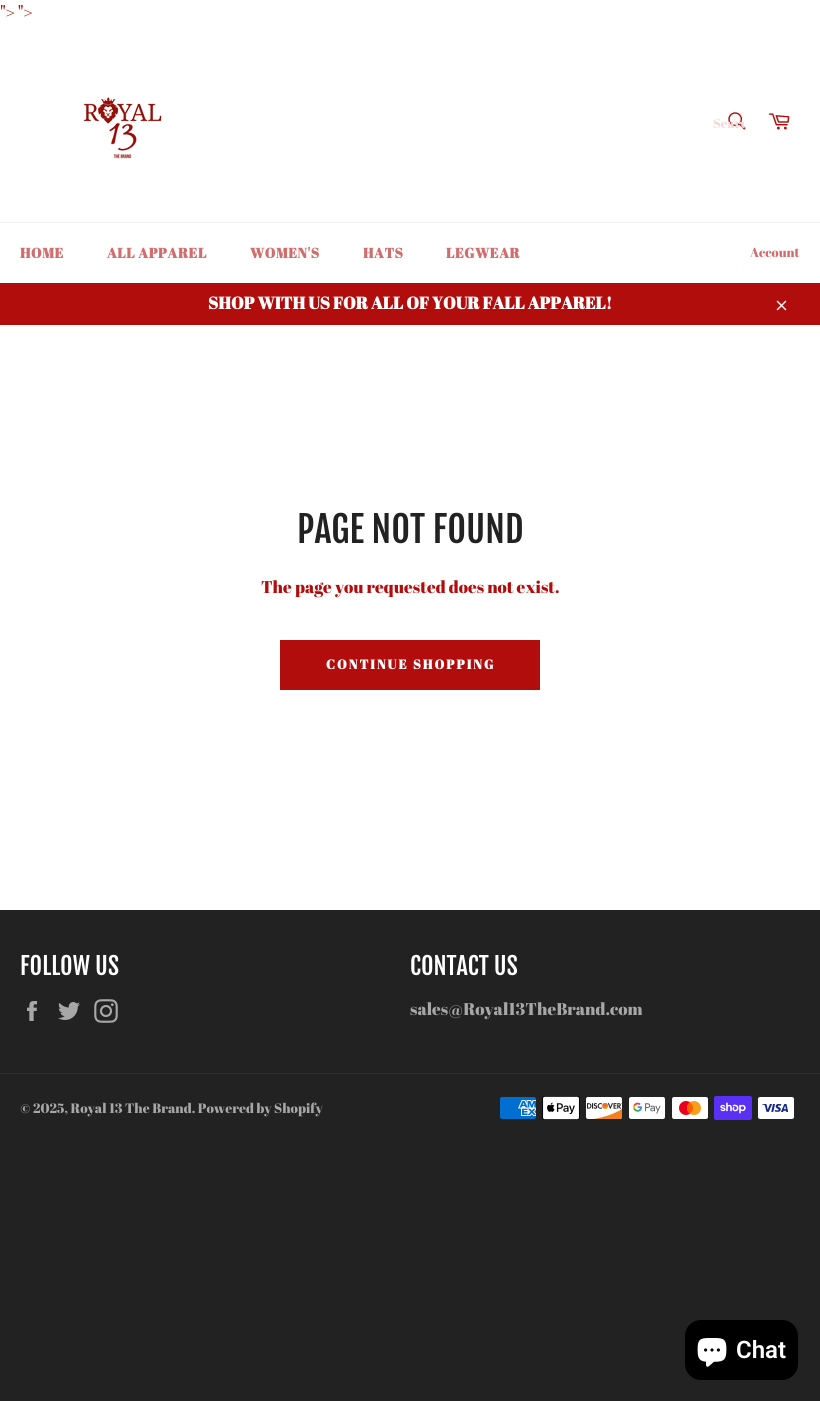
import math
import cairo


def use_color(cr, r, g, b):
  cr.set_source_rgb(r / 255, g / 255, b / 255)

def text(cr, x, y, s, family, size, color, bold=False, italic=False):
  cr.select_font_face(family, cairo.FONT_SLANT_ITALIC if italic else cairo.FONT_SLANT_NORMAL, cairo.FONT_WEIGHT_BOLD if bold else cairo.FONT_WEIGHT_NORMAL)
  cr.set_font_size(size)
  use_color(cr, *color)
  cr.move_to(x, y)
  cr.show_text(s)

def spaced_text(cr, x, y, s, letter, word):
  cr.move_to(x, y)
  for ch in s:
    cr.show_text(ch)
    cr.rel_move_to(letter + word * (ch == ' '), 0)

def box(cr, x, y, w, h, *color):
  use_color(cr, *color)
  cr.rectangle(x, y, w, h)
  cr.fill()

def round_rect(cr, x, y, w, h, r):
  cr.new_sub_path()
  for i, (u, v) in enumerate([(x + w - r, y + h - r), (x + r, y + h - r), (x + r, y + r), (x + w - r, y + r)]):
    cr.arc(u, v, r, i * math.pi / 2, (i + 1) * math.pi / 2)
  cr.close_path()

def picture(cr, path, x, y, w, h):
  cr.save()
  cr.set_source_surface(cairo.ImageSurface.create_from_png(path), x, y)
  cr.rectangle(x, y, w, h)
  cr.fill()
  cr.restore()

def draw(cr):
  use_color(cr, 34, 34, 34)
  cr.paint()
  box(cr, 0, 0, 820, 910, 255, 255, 255)
  picture(cr, "img_01.png", 83, 97, 79, 62)
  picture(cr, "img_02.png", 728, 112, 18, 18)
  picture(cr, "img_03.png", 768, 113, 22, 17)
  box(cr, 0, 222, 820, 1, 242, 242, 242)
  box(cr, 0, 283, 820, 42, 177, 13, 13)
  picture(cr, "img_04.png", 776, 300, 11, 11)
  box(cr, 280, 640, 260, 50, 177, 13, 13)
  picture(cr, "img_05.png", 27, 1001, 10, 20)
  picture(cr, "img_06.png", 58, 1002, 22, 18)
  picture(cr, "img_07.png", 94, 999, 24, 24)
  box(cr, 0, 1073, 820, 1, 47, 47, 47)
  picture(cr, "img_08.png", 500, 1097, 36, 22)
  picture(cr, "img_09.png", 542, 1096, 38, 24)
  picture(cr, "img_10.png", 586, 1097, 36, 22)
  picture(cr, "img_11.png", 629, 1097, 36, 22)
  picture(cr, "img_12.png", 672, 1097, 36, 22)
  picture(cr, "img_13.png", 714, 1096, 38, 24)
  picture(cr, "img_14.png", 758, 1097, 36, 22)
  use_color(cr, 0, 0, 0)
  round_rect(cr, 685, 1320, 113, 60, 16)
  cr.fill()
  picture(cr, "img_15.png", 697, 1338, 30, 29)
  text(cr, 0, 18, "\"> \">", "Abril Fatface", 17, (177, 13, 13))
  cr.save()
  cr.rectangle(713, 114, 32, 18)
  cr.clip()
  text(cr, 713, 128, "Searc", "Abril Fatface", 13, (243, 218, 218))
  cr.restore()
  cr.select_font_face("Abril Fatface", cairo.FONT_SLANT_NORMAL, cairo.FONT_WEIGHT_BOLD)
  cr.set_font_size(14)
  use_color(cr, 208, 110, 110)
  spaced_text(cr, 20, 258, "HOME", 0.6, 0)
  spaced_text(cr, 107, 258, "ALL APPAREL", 0.6, 0)
  spaced_text(cr, 250, 258, "WOMEN'S", 0.6, 0)
  spaced_text(cr, 363, 258, "HATS", 0.6, 0)
  spaced_text(cr, 446, 258, "LEGWEAR", 0.6, 0)
  text(cr, 750, 257, "Account", "Abril Fatface", 13, (208, 110, 110))
  text(cr, 208, 309, "SHOP WITH US FOR ALL OF YOUR FALL APPAREL!", "Abril Fatface", 17, (255, 255, 255), bold=True)
  text(cr, 297, 543, "PAGE NOT FOUND", "Fjalla One", 36, (34, 34, 34))
  text(cr, 261, 593, "The page you requested does not exist.", "Abril Fatface", 17, (177, 13, 13))
  cr.select_font_face("Abril Fatface", cairo.FONT_SLANT_NORMAL, cairo.FONT_WEIGHT_BOLD)
  cr.set_font_size(13)
  use_color(cr, 255, 255, 255)
  spaced_text(cr, 326, 669, "CONTINUE SHOPPING", 2, 0)
  text(cr, 20, 975, "FOLLOW US", "Fjalla One", 24, (255, 255, 255))
  text(cr, 410, 975, "CONTACT US", "Fjalla One", 24, (255, 255, 255))
  text(cr, 410, 1015, "sales@Royal13TheBrand.com", "Abril Fatface", 17, (167, 167, 167))
  text(cr, 20, 1113, "© 2025, Royal 13 The Brand. Powered by Shopify", "Abril Fatface", 13.6, (167, 167, 167))
  text(cr, 736, 1358, "Chat", "Roboto SemiBold", 24, (255, 255, 255))


surface = cairo.ImageSurface(cairo.FORMAT_RGB24, 820, 1401)
cr = cairo.Context(surface)
options = cairo.FontOptions()
options.set_hint_metrics(cairo.HINT_METRICS_OFF)
options.set_hint_style(cairo.HINT_STYLE_NONE)
cr.set_font_options(options)
cr.set_miter_limit(4)
draw(cr)
surface.write_to_png("out.png")
